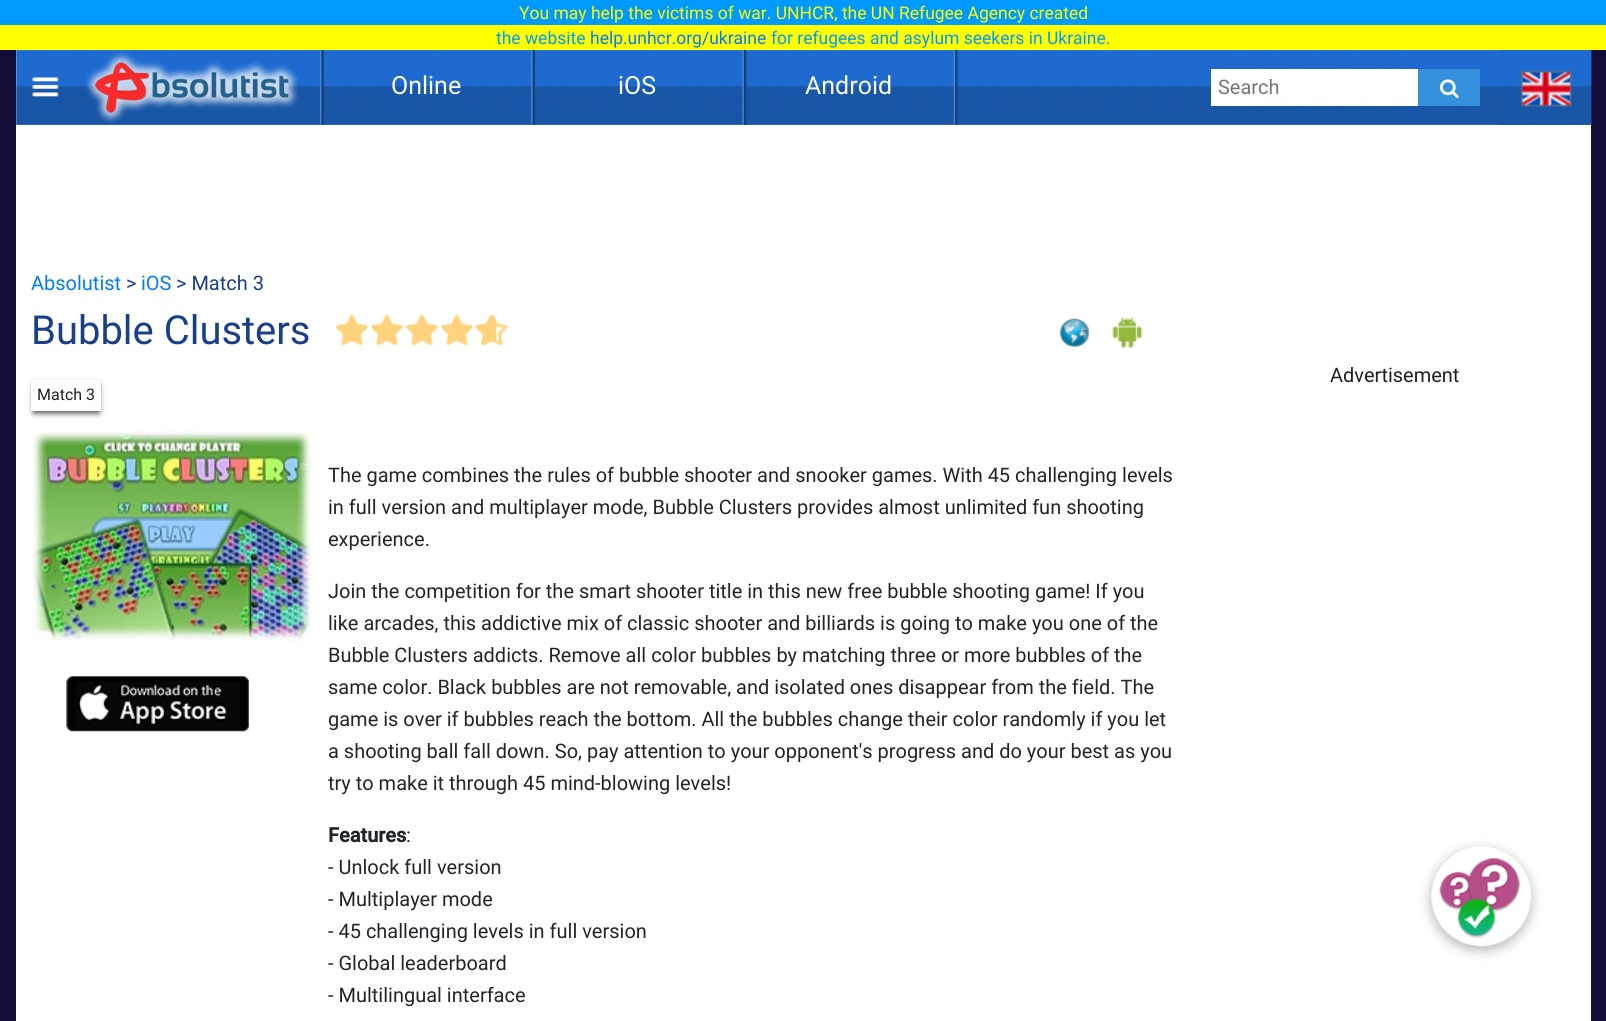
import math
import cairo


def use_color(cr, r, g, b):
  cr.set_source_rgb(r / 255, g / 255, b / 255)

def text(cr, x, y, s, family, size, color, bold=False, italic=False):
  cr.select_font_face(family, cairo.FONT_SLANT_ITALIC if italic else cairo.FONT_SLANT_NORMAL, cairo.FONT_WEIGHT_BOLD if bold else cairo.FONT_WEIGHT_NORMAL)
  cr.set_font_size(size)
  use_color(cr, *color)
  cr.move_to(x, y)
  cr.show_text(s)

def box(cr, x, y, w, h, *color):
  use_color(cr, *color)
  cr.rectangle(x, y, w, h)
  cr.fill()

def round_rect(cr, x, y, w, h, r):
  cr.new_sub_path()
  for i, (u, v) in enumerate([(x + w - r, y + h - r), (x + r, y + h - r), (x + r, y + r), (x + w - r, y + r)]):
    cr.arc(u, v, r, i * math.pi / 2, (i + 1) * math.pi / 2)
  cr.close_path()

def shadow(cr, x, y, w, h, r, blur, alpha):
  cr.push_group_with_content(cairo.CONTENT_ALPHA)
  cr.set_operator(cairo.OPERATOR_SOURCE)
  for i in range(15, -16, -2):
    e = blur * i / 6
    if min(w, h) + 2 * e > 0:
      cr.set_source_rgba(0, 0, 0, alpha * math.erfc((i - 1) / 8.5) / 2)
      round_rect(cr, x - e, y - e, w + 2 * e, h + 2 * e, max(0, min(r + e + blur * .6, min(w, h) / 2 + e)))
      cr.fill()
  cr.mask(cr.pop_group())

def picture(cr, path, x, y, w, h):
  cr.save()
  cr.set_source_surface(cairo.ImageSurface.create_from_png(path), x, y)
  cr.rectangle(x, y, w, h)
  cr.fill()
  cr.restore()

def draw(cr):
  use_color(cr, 20, 13, 57)
  cr.paint()
  picture(cr, "img_01.png", 0, 0, 1606, 50)
  box(cr, 16, 50, 1575, 971, 255, 255, 255)
  picture(cr, "img_02.png", 16, 50, 1576, 75)
  picture(cr, "img_03.png", 32, 77, 27, 20)
  picture(cr, "img_04.png", 85, 52, 214, 71)
  picture(cr, "img_05.png", 320, 50, 4, 75)
  picture(cr, "img_06.png", 531, 50, 4, 75)
  picture(cr, "img_07.png", 742, 50, 5, 75)
  picture(cr, "img_08.png", 953, 50, 5, 75)
  box(cr, 1211, 69, 207, 37, 255, 255, 255)
  box(cr, 1418, 69, 62, 37, 52, 144, 220)
  picture(cr, "img_09.png", 1440, 79, 19, 19)
  picture(cr, "img_10.png", 1500, 50, 92, 75)
  picture(cr, "img_11.png", 1521, 70, 51, 37)
  picture(cr, "img_12.png", 336, 314, 32, 32)
  picture(cr, "img_12.png", 371, 314, 32, 32)
  picture(cr, "img_12.png", 406, 314, 32, 32)
  picture(cr, "img_13.png", 441, 314, 32, 32)
  picture(cr, "img_14.png", 476, 314, 32, 32)
  picture(cr, "img_15.png", 476, 314, 21, 32)
  picture(cr, "img_16.png", 1059, 318, 31, 30)
  picture(cr, "img_17.png", 1112, 317, 31, 31)
  cr.save()
  cr.set_fill_rule(cairo.FILL_RULE_EVEN_ODD)
  cr.new_path()
  cr.move_to(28, 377)
  cr.line_to(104, 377)
  cr.line_to(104, 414)
  cr.line_to(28, 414)
  cr.close_path()
  cr.move_to(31, 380)
  cr.line_to(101, 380)
  cr.line_to(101, 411)
  cr.line_to(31, 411)
  cr.close_path()
  cr.clip()
  use_color(cr, 204, 204, 204)
  shadow(cr, 31, 380, 70, 31, 0, 0.5, 1)
  cr.restore()
  cr.save()
  cr.set_fill_rule(cairo.FILL_RULE_EVEN_ODD)
  cr.new_path()
  cr.move_to(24, 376)
  cr.line_to(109, 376)
  cr.line_to(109, 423)
  cr.line_to(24, 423)
  cr.close_path()
  cr.move_to(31, 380)
  cr.line_to(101, 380)
  cr.line_to(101, 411)
  cr.line_to(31, 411)
  cr.close_path()
  cr.clip()
  use_color(cr, 68, 68, 68)
  shadow(cr, 34, 386, 65, 27, 0, 3, 1)
  cr.restore()
  picture(cr, "img_18.png", 31, 430, 282, 212)
  picture(cr, "img_19.png", 66, 676, 183, 56)
  use_color(cr, 14, 1, 1)
  shadow(cr, 1431, 850, 100, 100, 50, 6, 0.3)
  picture(cr, "img_20.png", 1431, 846, 101, 101)
  text(cr, 519, 19, "You may help the victims of war. UNHCR, the UN Refugee Agency created", "Roboto", 17.5, (255, 255, 0))
  text(cr, 496, 44, "the website", "Roboto", 17.5, (0, 153, 255))
  text(cr, 590, 44, "help.unhcr.org/ukraine", "Roboto", 17.5, (0, 123, 255))
  text(cr, 771, 44, "for refugees and asylum seekers in Ukraine.", "Roboto", 17.5, (0, 153, 255))
  text(cr, 391, 94, "Online", "Roboto", 25, (255, 255, 255))
  text(cr, 618, 94, "iOS", "Roboto", 25, (255, 255, 255))
  text(cr, 805, 94, "Android", "Roboto", 25, (255, 255, 255))
  text(cr, 1218, 94, "Search", "Roboto", 20, (117, 117, 117))
  text(cr, 31, 290, "Absolutist", "Roboto", 20, (0, 123, 255))
  text(cr, 126, 290, ">", "Roboto", 20, (25, 63, 139))
  text(cr, 141, 290, "iOS", "Roboto", 20, (0, 123, 255))
  text(cr, 176, 290, "> Match 3", "Roboto", 20, (25, 63, 139))
  text(cr, 31, 344, "Bubble Clusters", "Roboto", 40, (25, 63, 139))
  text(cr, 37, 400, "Match 3", "Roboto", 16, (32, 32, 32))
  text(cr, 1330, 382, "Advertisement", "Roboto", 20, (32, 32, 32))
  text(cr, 328, 482, "The game combines the rules of bubble shooter and snooker games. With 45 challenging levels", "Roboto", 20, (33, 37, 41))
  text(cr, 328, 514, "in full version and multiplayer mode, Bubble Clusters provides almost unlimited fun shooting", "Roboto", 20, (33, 37, 41))
  text(cr, 328, 546, "experience.", "Roboto", 20, (33, 37, 41))
  text(cr, 328, 598, "Join the competition for the smart shooter title in this new free bubble shooting game! If you", "Roboto", 20, (33, 37, 41))
  text(cr, 328, 630, "like arcades, this addictive mix of classic shooter and billiards is going to make you one of the", "Roboto", 20, (33, 37, 41))
  text(cr, 328, 662, "Bubble Clusters addicts. Remove all color bubbles by matching three or more bubbles of the", "Roboto", 20, (33, 37, 41))
  text(cr, 328, 694, "same color. Black bubbles are not removable, and isolated ones disappear from the field. The", "Roboto", 20, (33, 37, 41))
  text(cr, 328, 726, "game is over if bubbles reach the bottom. All the bubbles change their color randomly if you let", "Roboto", 20, (33, 37, 41))
  text(cr, 328, 758, "a shooting ball fall down. So, pay attention to your opponent's progress and do your best as you", "Roboto", 20, (33, 37, 41))
  text(cr, 328, 790, "try to make it through 45 mind-blowing levels!", "Roboto", 20, (33, 37, 41))
  text(cr, 328, 842, "Features", "Roboto", 20, (33, 37, 41), bold=True)
  text(cr, 406, 842, ":", "Roboto", 20, (33, 37, 41))
  text(cr, 328, 874, "- Unlock full version", "Roboto", 20, (33, 37, 41))
  text(cr, 328, 906, "- Multiplayer mode", "Roboto", 20, (33, 37, 41))
  text(cr, 328, 938, "- 45 challenging levels in full version", "Roboto", 20, (33, 37, 41))
  text(cr, 328, 970, "- Global leaderboard", "Roboto", 20, (33, 37, 41))
  text(cr, 328, 1002, "- Multilingual interface", "Roboto", 20, (33, 37, 41))


surface = cairo.ImageSurface(cairo.FORMAT_RGB24, 1606, 1021)
cr = cairo.Context(surface)
options = cairo.FontOptions()
options.set_hint_metrics(cairo.HINT_METRICS_OFF)
options.set_hint_style(cairo.HINT_STYLE_NONE)
cr.set_font_options(options)
cr.set_miter_limit(4)
draw(cr)
surface.write_to_png("out.png")
